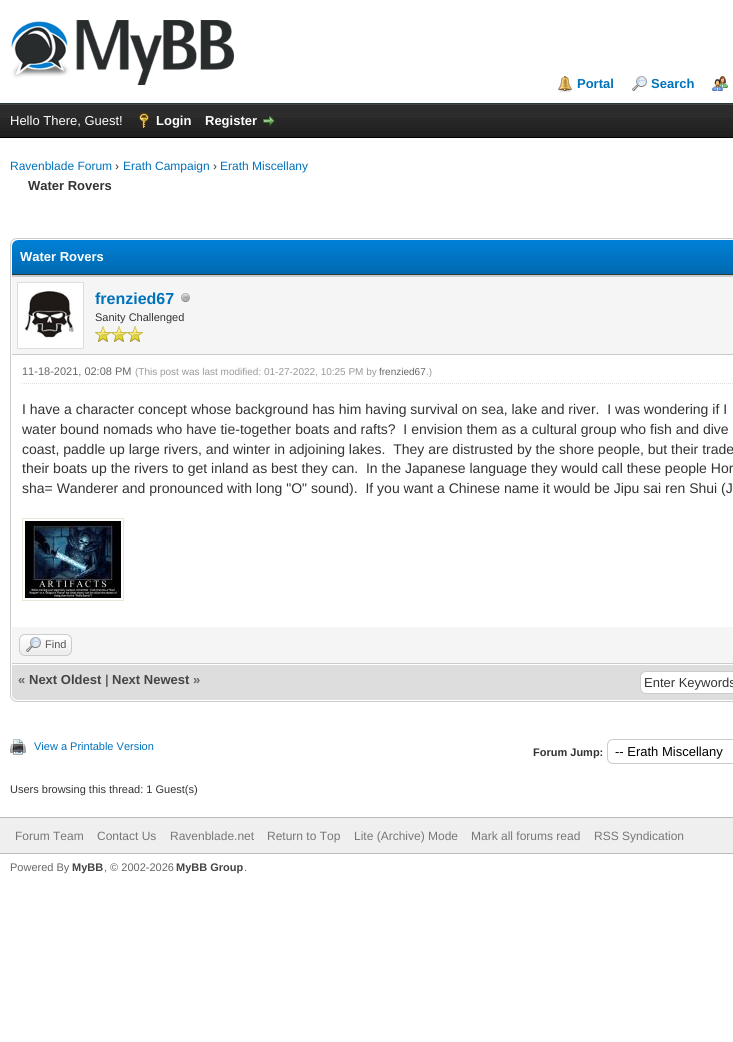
import math
import cairo


def use_color(cr, r, g, b):
  cr.set_source_rgb(r / 255, g / 255, b / 255)

def text(cr, x, y, s, family, size, color, bold=False, italic=False):
  cr.select_font_face(family, cairo.FONT_SLANT_ITALIC if italic else cairo.FONT_SLANT_NORMAL, cairo.FONT_WEIGHT_BOLD if bold else cairo.FONT_WEIGHT_NORMAL)
  cr.set_font_size(size)
  use_color(cr, *color)
  cr.move_to(x, y)
  cr.show_text(s)

def box(cr, x, y, w, h, *color):
  use_color(cr, *color)
  cr.rectangle(x, y, w, h)
  cr.fill()

def round_rect(cr, x, y, w, h, r):
  cr.new_sub_path()
  for i, (u, v) in enumerate([(x + w - r, y + h - r), (x + r, y + h - r), (x + r, y + r), (x + w - r, y + r)]):
    cr.arc(u, v, r, i * math.pi / 2, (i + 1) * math.pi / 2)
  cr.close_path()

def picture(cr, path, x, y, w, h):
  cr.save()
  cr.set_source_surface(cairo.ImageSurface.create_from_png(path), x, y)
  cr.rectangle(x, y, w, h)
  cr.fill()
  cr.restore()

def draw(cr):
  use_color(cr, 255, 255, 255)
  cr.paint()
  box(cr, 0, 103, 733, 1, 38, 60, 48)
  picture(cr, "img_01.png", 10, 20, 224, 65)
  picture(cr, "img_02.png", 558, 76, 14, 16)
  picture(cr, "img_03.png", 632, 76, 15, 15)
  picture(cr, "img_04.png", 712, 76, 16, 15)
  picture(cr, "img_05.png", 0, 105, 733, 32)
  box(cr, 0, 104, 733, 1, 68, 68, 68)
  box(cr, 0, 137, 733, 1, 0, 0, 0)
  picture(cr, "img_06.png", 139, 113, 10, 15)
  picture(cr, "img_07.png", 263, 116, 12, 10)
  round_rect(cr, 10.5, 238.5, 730, 463, 6.5)
  use_color(cr, 204, 204, 204)
  cr.set_line_width(1)
  cr.stroke()
  picture(cr, "img_08.png", 12, 240, 721, 34)
  box(cr, 12, 274, 721, 1, 38, 60, 48)
  box(cr, 12, 277, 721, 77, 245, 245, 245)
  box(cr, 12, 275, 721, 2, 204, 204, 204)
  box(cr, 12, 354, 721, 1, 204, 204, 204)
  use_color(cr, 255, 255, 255)
  cr.rectangle(17.5, 282.5, 66, 66)
  cr.fill_preserve()
  use_color(cr, 221, 221, 221)
  cr.stroke()
  picture(cr, "img_09.png", 24, 291, 50, 47)
  picture(cr, "img_10.png", 181, 293, 9, 9)
  picture(cr, "img_11.png", 95, 326, 16, 16)
  picture(cr, "img_11.png", 111, 326, 16, 16)
  picture(cr, "img_11.png", 127, 326, 16, 16)
  cr.new_path()
  cr.move_to(22, 383.5)
  cr.line_to(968, 383.5)
  cr.set_dash([1, 1])
  cr.stroke()
  cr.rectangle(22.5, 518.5, 101, 82)
  use_color(cr, 233, 229, 215)
  cr.set_dash([])
  cr.stroke()
  picture(cr, "img_12.png", 25, 521, 96, 77)
  box(cr, 12, 627, 721, 36, 245, 245, 245)
  box(cr, 12, 663, 721, 1, 204, 204, 204)
  use_color(cr, 238, 238, 238)
  round_rect(cr, 19, 634, 53, 22, 6)
  cr.fill()
  picture(cr, "img_13.png", 19, 635, 53, 15)
  round_rect(cr, 19.5, 634.5, 52, 21, 5.5)
  use_color(cr, 204, 204, 204)
  cr.stroke()
  picture(cr, "img_14.png", 26, 637, 15, 15)
  use_color(cr, 221, 221, 221)
  cr.new_path()
  cr.move_to(12, 664)
  cr.line_to(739, 664)
  cr.line_to(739, 694)
  cr.curve_to(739, 697.5, 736.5, 700, 733, 700)
  cr.line_to(18, 700)
  cr.curve_to(14.5, 700, 12, 697.5, 12, 694)
  cr.close_path()
  cr.fill()
  box(cr, 12, 664, 721, 1, 255, 255, 255)
  round_rect(cr, 640.5, 671.5, 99, 22, 5.5)
  cr.fill_preserve()
  use_color(cr, 204, 204, 204)
  cr.stroke()
  picture(cr, "img_15.png", 10, 739, 16, 16)
  round_rect(cr, 607.5, 739.5, 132, 24, 5.5)
  cr.stroke()
  box(cr, 0, 818, 733, 35, 239, 239, 239)
  box(cr, 0, 817, 733, 1, 187, 187, 187)
  box(cr, 0, 853, 733, 1, 187, 187, 187)
  text(cr, 577, 88, "Portal", "Liberation Sans", 13, (0, 114, 188), bold=True)
  text(cr, 651, 88, "Search", "Liberation Sans", 13, (0, 114, 188), bold=True)
  text(cr, 10, 125, "Hello There, Guest!", "Liberation Sans", 13, (255, 255, 255))
  text(cr, 156, 125, "Login", "Liberation Sans", 13, (255, 255, 255), bold=True)
  text(cr, 205, 125, "Register", "Liberation Sans", 13, (255, 255, 255), bold=True)
  text(cr, 10, 170, "Ravenblade Forum", "Liberation Sans", 12, (0, 114, 188))
  text(cr, 115, 170, "›", "Liberation Sans", 12, (51, 51, 51))
  text(cr, 123, 170, "Erath Campaign", "Liberation Sans", 12, (0, 114, 188))
  text(cr, 213, 170, "›", "Liberation Sans", 12, (51, 51, 51))
  text(cr, 220, 170, "Erath Miscellany", "Liberation Sans", 12, (0, 114, 188))
  text(cr, 28, 190, "Water Rovers", "Liberation Sans", 13, (51, 51, 51), bold=True)
  text(cr, 20, 261, "Water Rovers", "Liberation Sans", 13, (255, 255, 255), bold=True)
  text(cr, 95, 304, "frenzied67", "Liberation Sans", 16, (0, 114, 188), bold=True)
  text(cr, 95, 321, "Sanity Challenged", "Liberation Sans", 11, (51, 51, 51))
  text(cr, 22, 375, "11-18-2021, 02:08 PM", "Liberation Sans", 11, (102, 102, 102))
  text(cr, 135, 375, "(This post was last modified: 01-27-2022, 10:25 PM by", "Liberation Sans", 10, (153, 153, 153))
  text(cr, 379, 375, "frenzied67", "Liberation Sans", 10, (102, 102, 102))
  text(cr, 426, 375, ".)", "Liberation Sans", 10, (153, 153, 153))
  text(cr, 22, 414, "I have a character concept whose background has him having survival on sea, lake and river.  I was wondering if I", "Liberation Sans", 14, (51, 51, 51))
  text(cr, 22, 434, "water bound nomads who have tie-together boats and rafts?  I envision them as a cultural group who fish and dive", "Liberation Sans", 14, (51, 51, 51))
  text(cr, 22, 454, "coast, paddle up large rivers, and winter in adjoining lakes.  They are distrusted by the shore people, but their trade", "Liberation Sans", 14, (51, 51, 51))
  text(cr, 22, 473, "their boats up the rivers to get inland as best they can.  In the Japanese language they would call these people Hor", "Liberation Sans", 14, (51, 51, 51))
  text(cr, 22, 493, "sha= Wanderer and pronounced with long \"O\" sound).  If you want a Chinese name it would be Jipu sai ren Shui (J", "Liberation Sans", 14, (51, 51, 51))
  text(cr, 45, 648, "Find", "Liberation Sans", 11, (85, 85, 85))
  text(cr, 18, 684, "«", "Liberation Sans", 13, (102, 102, 102), bold=True)
  text(cr, 29, 684, "Next Oldest", "Liberation Sans", 13, (68, 68, 68), bold=True)
  text(cr, 105, 684, "|", "Liberation Sans", 13, (102, 102, 102), bold=True)
  text(cr, 112, 684, "Next Newest", "Liberation Sans", 13, (68, 68, 68), bold=True)
  text(cr, 193, 684, "»", "Liberation Sans", 13, (102, 102, 102), bold=True)
  text(cr, 644, 687, "Enter Keywords", "Liberation Sans", 13, (51, 51, 51))
  text(cr, 34, 750, "View a Printable Version", "Liberation Sans", 11, (0, 114, 188))
  text(cr, 533, 756, "Forum Jump:", "Liberation Sans", 11, (51, 51, 51), bold=True)
  text(cr, 615, 756, "-- Erath Miscellany", "Liberation Sans", 13, (0, 0, 0))
  text(cr, 10, 793, "Users browsing this thread: 1 Guest(s)", "Liberation Sans", 11, (51, 51, 51))
  text(cr, 15, 840, "Forum Team", "Liberation Sans", 12, (119, 119, 119))
  text(cr, 97, 840, "Contact Us", "Liberation Sans", 12, (119, 119, 119))
  text(cr, 170, 840, "Ravenblade.net", "Liberation Sans", 12, (119, 119, 119))
  text(cr, 267, 840, "Return to Top", "Liberation Sans", 12, (119, 119, 119))
  text(cr, 354, 840, "Lite (Archive) Mode", "Liberation Sans", 12, (119, 119, 119))
  text(cr, 471, 840, "Mark all forums read", "Liberation Sans", 12, (119, 119, 119))
  text(cr, 594, 840, "RSS Syndication", "Liberation Sans", 12, (119, 119, 119))
  text(cr, 10, 871, "Powered By", "Liberation Sans", 11, (102, 102, 102))
  text(cr, 72, 871, "MyBB", "Liberation Sans", 11, (68, 68, 68), bold=True)
  text(cr, 104, 871, ", © 2002-2026", "Liberation Sans", 11, (102, 102, 102))
  text(cr, 176, 871, "MyBB Group", "Liberation Sans", 11, (68, 68, 68), bold=True)
  text(cr, 244, 871, ".", "Liberation Sans", 11, (102, 102, 102))


surface = cairo.ImageSurface(cairo.FORMAT_RGB24, 733, 1042)
cr = cairo.Context(surface)
options = cairo.FontOptions()
options.set_hint_metrics(cairo.HINT_METRICS_OFF)
options.set_hint_style(cairo.HINT_STYLE_NONE)
cr.set_font_options(options)
cr.set_miter_limit(4)
draw(cr)
surface.write_to_png("out.png")
